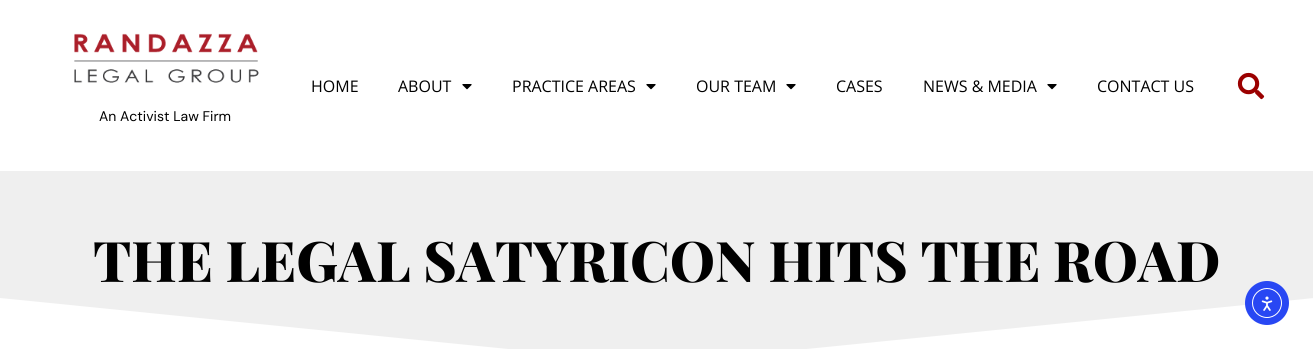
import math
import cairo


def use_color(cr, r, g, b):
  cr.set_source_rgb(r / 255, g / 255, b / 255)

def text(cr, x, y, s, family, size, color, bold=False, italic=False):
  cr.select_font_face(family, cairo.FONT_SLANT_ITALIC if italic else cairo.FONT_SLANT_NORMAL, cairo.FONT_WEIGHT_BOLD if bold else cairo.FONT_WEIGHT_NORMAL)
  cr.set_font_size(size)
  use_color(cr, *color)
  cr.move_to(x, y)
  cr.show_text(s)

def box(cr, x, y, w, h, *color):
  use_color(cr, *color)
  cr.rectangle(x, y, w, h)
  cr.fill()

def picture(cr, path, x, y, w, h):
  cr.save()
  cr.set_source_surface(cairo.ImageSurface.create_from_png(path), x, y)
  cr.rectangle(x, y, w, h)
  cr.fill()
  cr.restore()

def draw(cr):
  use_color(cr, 255, 255, 255)
  cr.paint()
  picture(cr, "img_01.png", 462, 84, 10, 6)
  picture(cr, "img_01.png", 646, 84, 10, 6)
  picture(cr, "img_01.png", 786, 84, 10, 6)
  picture(cr, "img_01.png", 1047, 84, 10, 6)
  picture(cr, "img_02.png", 1237, 72, 28, 28)
  picture(cr, "img_03.png", 74, 33, 185, 50)
  box(cr, 0, 171, 1313, 178, 239, 239, 239)
  use_color(cr, 255, 255, 255)
  cr.new_path()
  cr.move_to(657, 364)
  cr.line_to(0, 298)
  cr.line_to(0, 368)
  cr.line_to(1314, 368)
  cr.line_to(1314, 298)
  cr.close_path()
  cr.fill()
  use_color(cr, 40, 71, 243)
  cr.arc(1267, 303, 22, 0, 2 * math.pi)
  cr.fill()
  cr.arc(1267, 303, 14.5, 0, 2 * math.pi)
  use_color(cr, 255, 255, 255)
  cr.set_line_width(1)
  cr.stroke()
  picture(cr, "img_04.png", 1261, 296, 12, 15)
  text(cr, 311, 92, "HOME", "Open Sans", 16, (0, 0, 0))
  text(cr, 398, 92, "ABOUT", "Open Sans", 16, (0, 0, 0))
  text(cr, 512, 92, "PRACTICE AREAS", "Open Sans", 16, (0, 0, 0))
  text(cr, 696, 92, "OUR TEAM", "Open Sans", 16, (0, 0, 0))
  text(cr, 836, 92, "CASES", "Open Sans", 16, (0, 0, 0))
  text(cr, 923, 92, "NEWS & MEDIA", "Open Sans", 16, (0, 0, 0))
  text(cr, 1097, 92, "CONTACT US", "Open Sans", 16, (0, 0, 0))
  text(cr, 99, 121, "An Activist Law Firm", "DM Sans", 14, (0, 0, 0))
  text(cr, 93, 282, "THE LEGAL SATYRICON HITS THE ROAD", "Playfair Display ExtraBold", 56, (0, 0, 0))


surface = cairo.ImageSurface(cairo.FORMAT_RGB24, 1313, 349)
cr = cairo.Context(surface)
options = cairo.FontOptions()
options.set_hint_metrics(cairo.HINT_METRICS_OFF)
options.set_hint_style(cairo.HINT_STYLE_NONE)
cr.set_font_options(options)
cr.set_miter_limit(4)
draw(cr)
surface.write_to_png("out.png")
